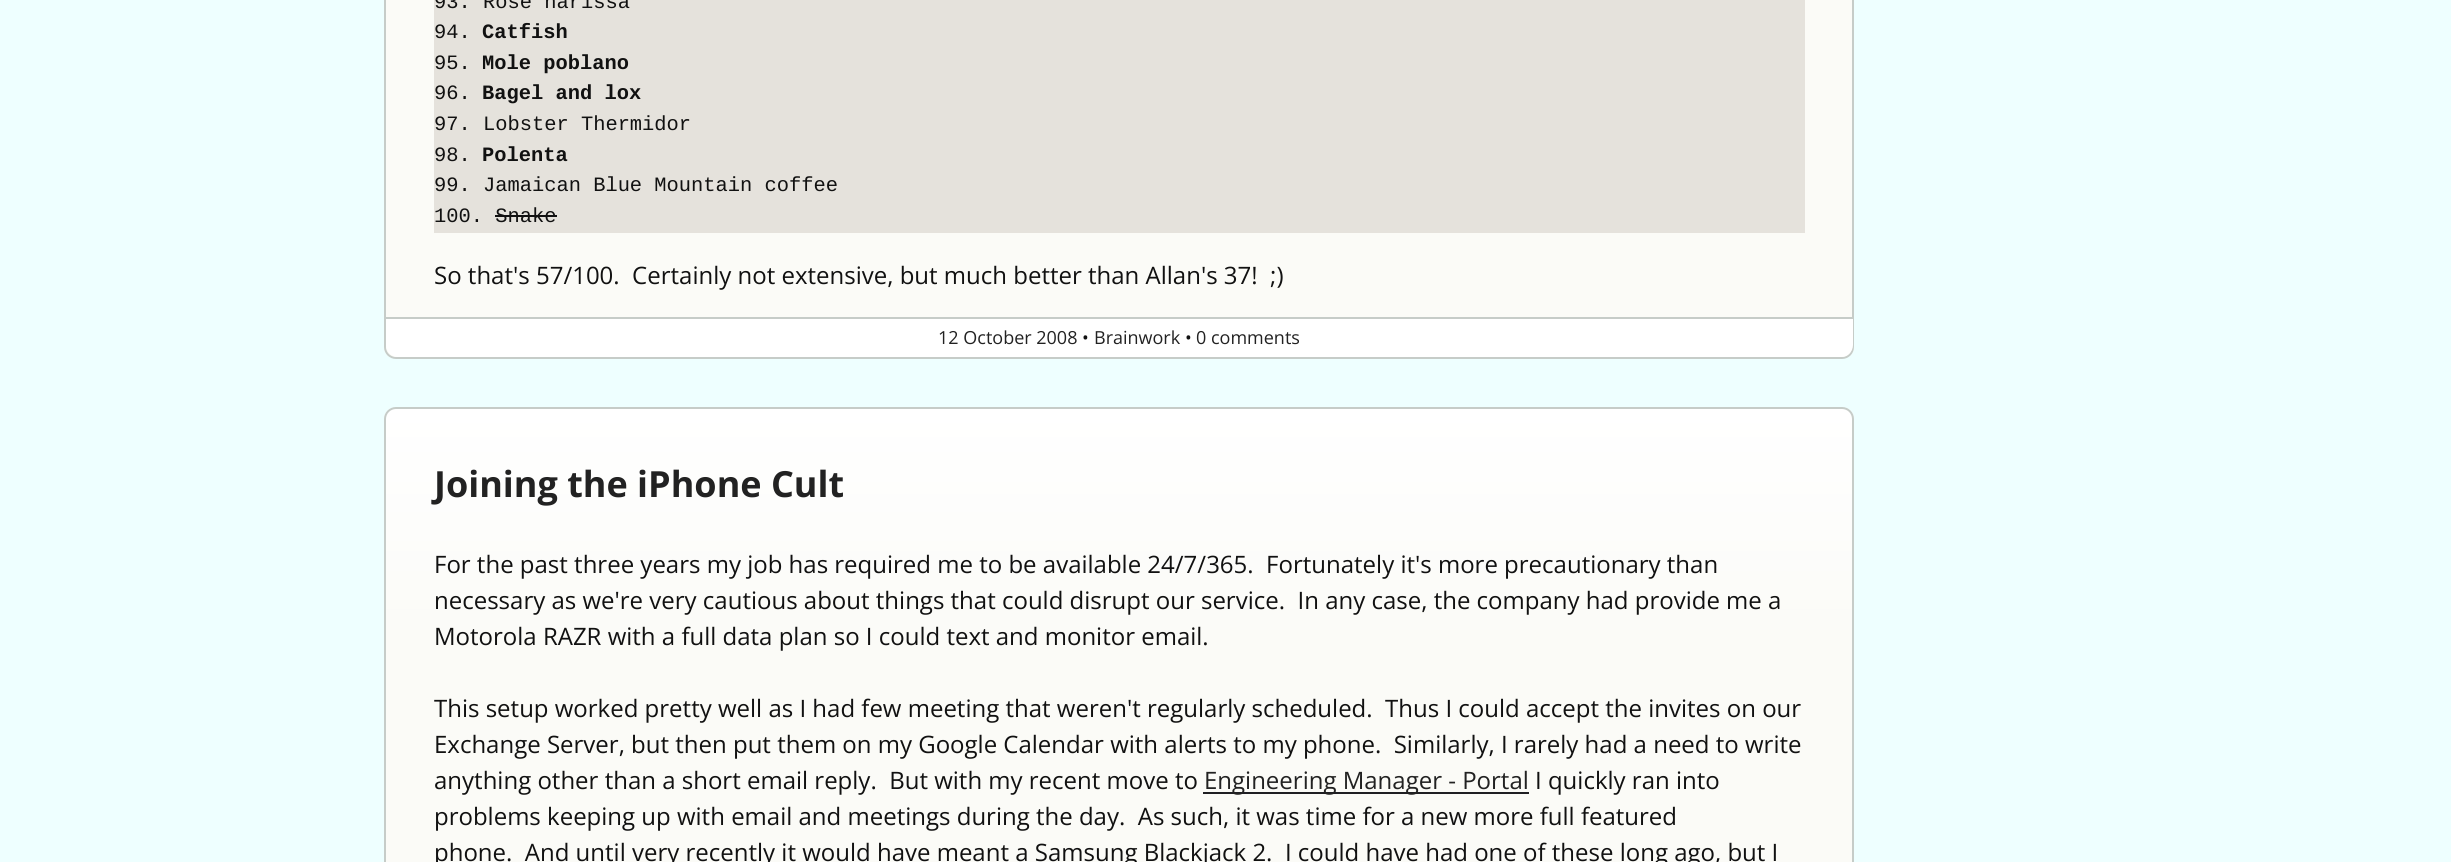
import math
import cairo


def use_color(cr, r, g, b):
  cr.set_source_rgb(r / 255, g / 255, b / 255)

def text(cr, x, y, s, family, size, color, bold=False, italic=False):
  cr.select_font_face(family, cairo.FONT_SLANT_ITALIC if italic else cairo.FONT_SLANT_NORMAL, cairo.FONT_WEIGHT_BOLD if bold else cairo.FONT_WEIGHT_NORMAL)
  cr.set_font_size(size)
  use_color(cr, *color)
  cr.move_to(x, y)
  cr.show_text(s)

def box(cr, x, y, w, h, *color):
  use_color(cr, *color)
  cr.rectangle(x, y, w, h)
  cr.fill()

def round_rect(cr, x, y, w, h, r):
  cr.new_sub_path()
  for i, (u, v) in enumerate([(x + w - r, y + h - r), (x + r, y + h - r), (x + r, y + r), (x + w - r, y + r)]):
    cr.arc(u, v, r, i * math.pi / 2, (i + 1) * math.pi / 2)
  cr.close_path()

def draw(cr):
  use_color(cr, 238, 255, 255)
  cr.paint()
  cr.save()
  round_rect(cr, 384, -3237, 1470, 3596, 12)
  cr.clip()
  gradient = cairo.LinearGradient(1119, -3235, 1119, 357)
  gradient.add_color_stop_rgba(0, 1, 1, 1, 1)
  gradient.add_color_stop_rgba(0.07, 0.984, 0.984, 0.969, 1)
  cr.set_source(gradient)
  cr.rectangle(384, 0, 1470, 357)
  cr.fill()
  cr.restore()
  round_rect(cr, 385, -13, 1468, 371, 11)
  use_color(cr, 198, 204, 200)
  cr.stroke()
  box(cr, 434, 0, 1371, 233, 229, 226, 220)
  box(cr, 495, 215, 62, 2, 17, 17, 17)
  use_color(cr, 255, 255, 255)
  cr.new_path()
  cr.move_to(386, 317)
  cr.line_to(1853, 317)
  cr.line_to(1853, 345)
  cr.curve_to(1853, 351.5, 1847.5, 357, 1841, 357)
  cr.line_to(398, 357)
  cr.curve_to(391.5, 357, 386, 351.5, 386, 345)
  cr.close_path()
  cr.fill()
  box(cr, 386, 317, 1467, 2, 198, 204, 200)
  cr.save()
  round_rect(cr, 384, 407, 1470, 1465, 12)
  cr.clip()
  gradient = cairo.LinearGradient(1119, 408, 1119, 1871)
  gradient.add_color_stop_rgba(0, 1, 1, 1, 1)
  gradient.add_color_stop_rgba(0.16, 0.984, 0.984, 0.969, 1)
  cr.set_source(gradient)
  cr.rectangle(384, 408, 1470, 454)
  cr.fill()
  cr.restore()
  round_rect(cr, 385, 408, 1468, 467, 11)
  cr.stroke()
  box(cr, 1203, 792, 326, 2, 31, 31, 35)
  text(cr, 434, 8, "93. Rose harissa", "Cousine", 20.4, (17, 17, 17))
  text(cr, 434, 38, "94.", "Cousine", 20.4, (17, 17, 17))
  text(cr, 482, 38, "Catfish", "Cousine", 20.4, (17, 17, 17), bold=True)
  text(cr, 434, 69, "95.", "Cousine", 20.4, (17, 17, 17))
  text(cr, 482, 69, "Mole poblano", "Cousine", 20.4, (17, 17, 17), bold=True)
  text(cr, 434, 99, "96.", "Cousine", 20.4, (17, 17, 17))
  text(cr, 482, 99, "Bagel and lox", "Cousine", 20.4, (17, 17, 17), bold=True)
  text(cr, 434, 130, "97. Lobster Thermidor", "Cousine", 20.4, (17, 17, 17))
  text(cr, 434, 161, "98.", "Cousine", 20.4, (17, 17, 17))
  text(cr, 482, 161, "Polenta", "Cousine", 20.4, (17, 17, 17), bold=True)
  text(cr, 434, 191, "99. Jamaican Blue Mountain coffee", "Cousine", 20.4, (17, 17, 17))
  text(cr, 434, 222, "100. Snake", "Cousine", 20.4, (17, 17, 17))
  text(cr, 434, 284, "So that's 57/100.  Certainly not extensive, but much better than Allan's 37!  ;)", "Open Sans", 24, (17, 17, 17))
  text(cr, 938, 344, "12 October 2008", "Open Sans", 18, (34, 34, 34))
  text(cr, 1082, 344, "•", "Open Sans", 18, (17, 17, 17))
  text(cr, 1094, 344, "Brainwork", "Open Sans", 18, (34, 34, 34))
  text(cr, 1185, 344, "•", "Open Sans", 18, (17, 17, 17))
  text(cr, 1196, 344, "0 comments", "Open Sans", 18, (34, 34, 34))
  text(cr, 434, 497, "Joining the iPhone Cult", "Open Sans", 36, (34, 34, 34), bold=True)
  text(cr, 434, 573, "For the past three years my job has required me to be available 24/7/365.  Fortunately it's more precautionary than", "Open Sans", 24, (17, 17, 17))
  text(cr, 434, 609, "necessary as we're very cautious about things that could disrupt our service.  In any case, the company had provide me a", "Open Sans", 24, (17, 17, 17))
  text(cr, 434, 645, "Motorola RAZR with a full data plan so I could text and monitor email.", "Open Sans", 24, (17, 17, 17))
  text(cr, 434, 717, "This setup worked pretty well as I had few meeting that weren't regularly scheduled.  Thus I could accept the invites on our", "Open Sans", 24, (17, 17, 17))
  text(cr, 434, 753, "Exchange Server, but then put them on my Google Calendar with alerts to my phone.  Similarly, I rarely had a need to write", "Open Sans", 24, (17, 17, 17))
  text(cr, 434, 789, "anything other than a short email reply.  But with my recent move to", "Open Sans", 24, (17, 17, 17))
  text(cr, 1204, 789, "Engineering Manager - Portal", "Open Sans", 24, (34, 34, 34))
  text(cr, 1535, 789, "I quickly ran into", "Open Sans", 24, (17, 17, 17))
  text(cr, 434, 825, "problems keeping up with email and meetings during the day.  As such, it was time for a new more full featured", "Open Sans", 24, (17, 17, 17))
  text(cr, 434, 861, "phone.  And until very recently it would have meant a Samsung Blackjack 2.  I could have had one of these long ago, but I", "Open Sans", 24, (17, 17, 17))


surface = cairo.ImageSurface(cairo.FORMAT_RGB24, 2451, 862)
cr = cairo.Context(surface)
options = cairo.FontOptions()
options.set_hint_metrics(cairo.HINT_METRICS_OFF)
options.set_hint_style(cairo.HINT_STYLE_NONE)
cr.set_font_options(options)
cr.set_miter_limit(4)
draw(cr)
surface.write_to_png("out.png")
